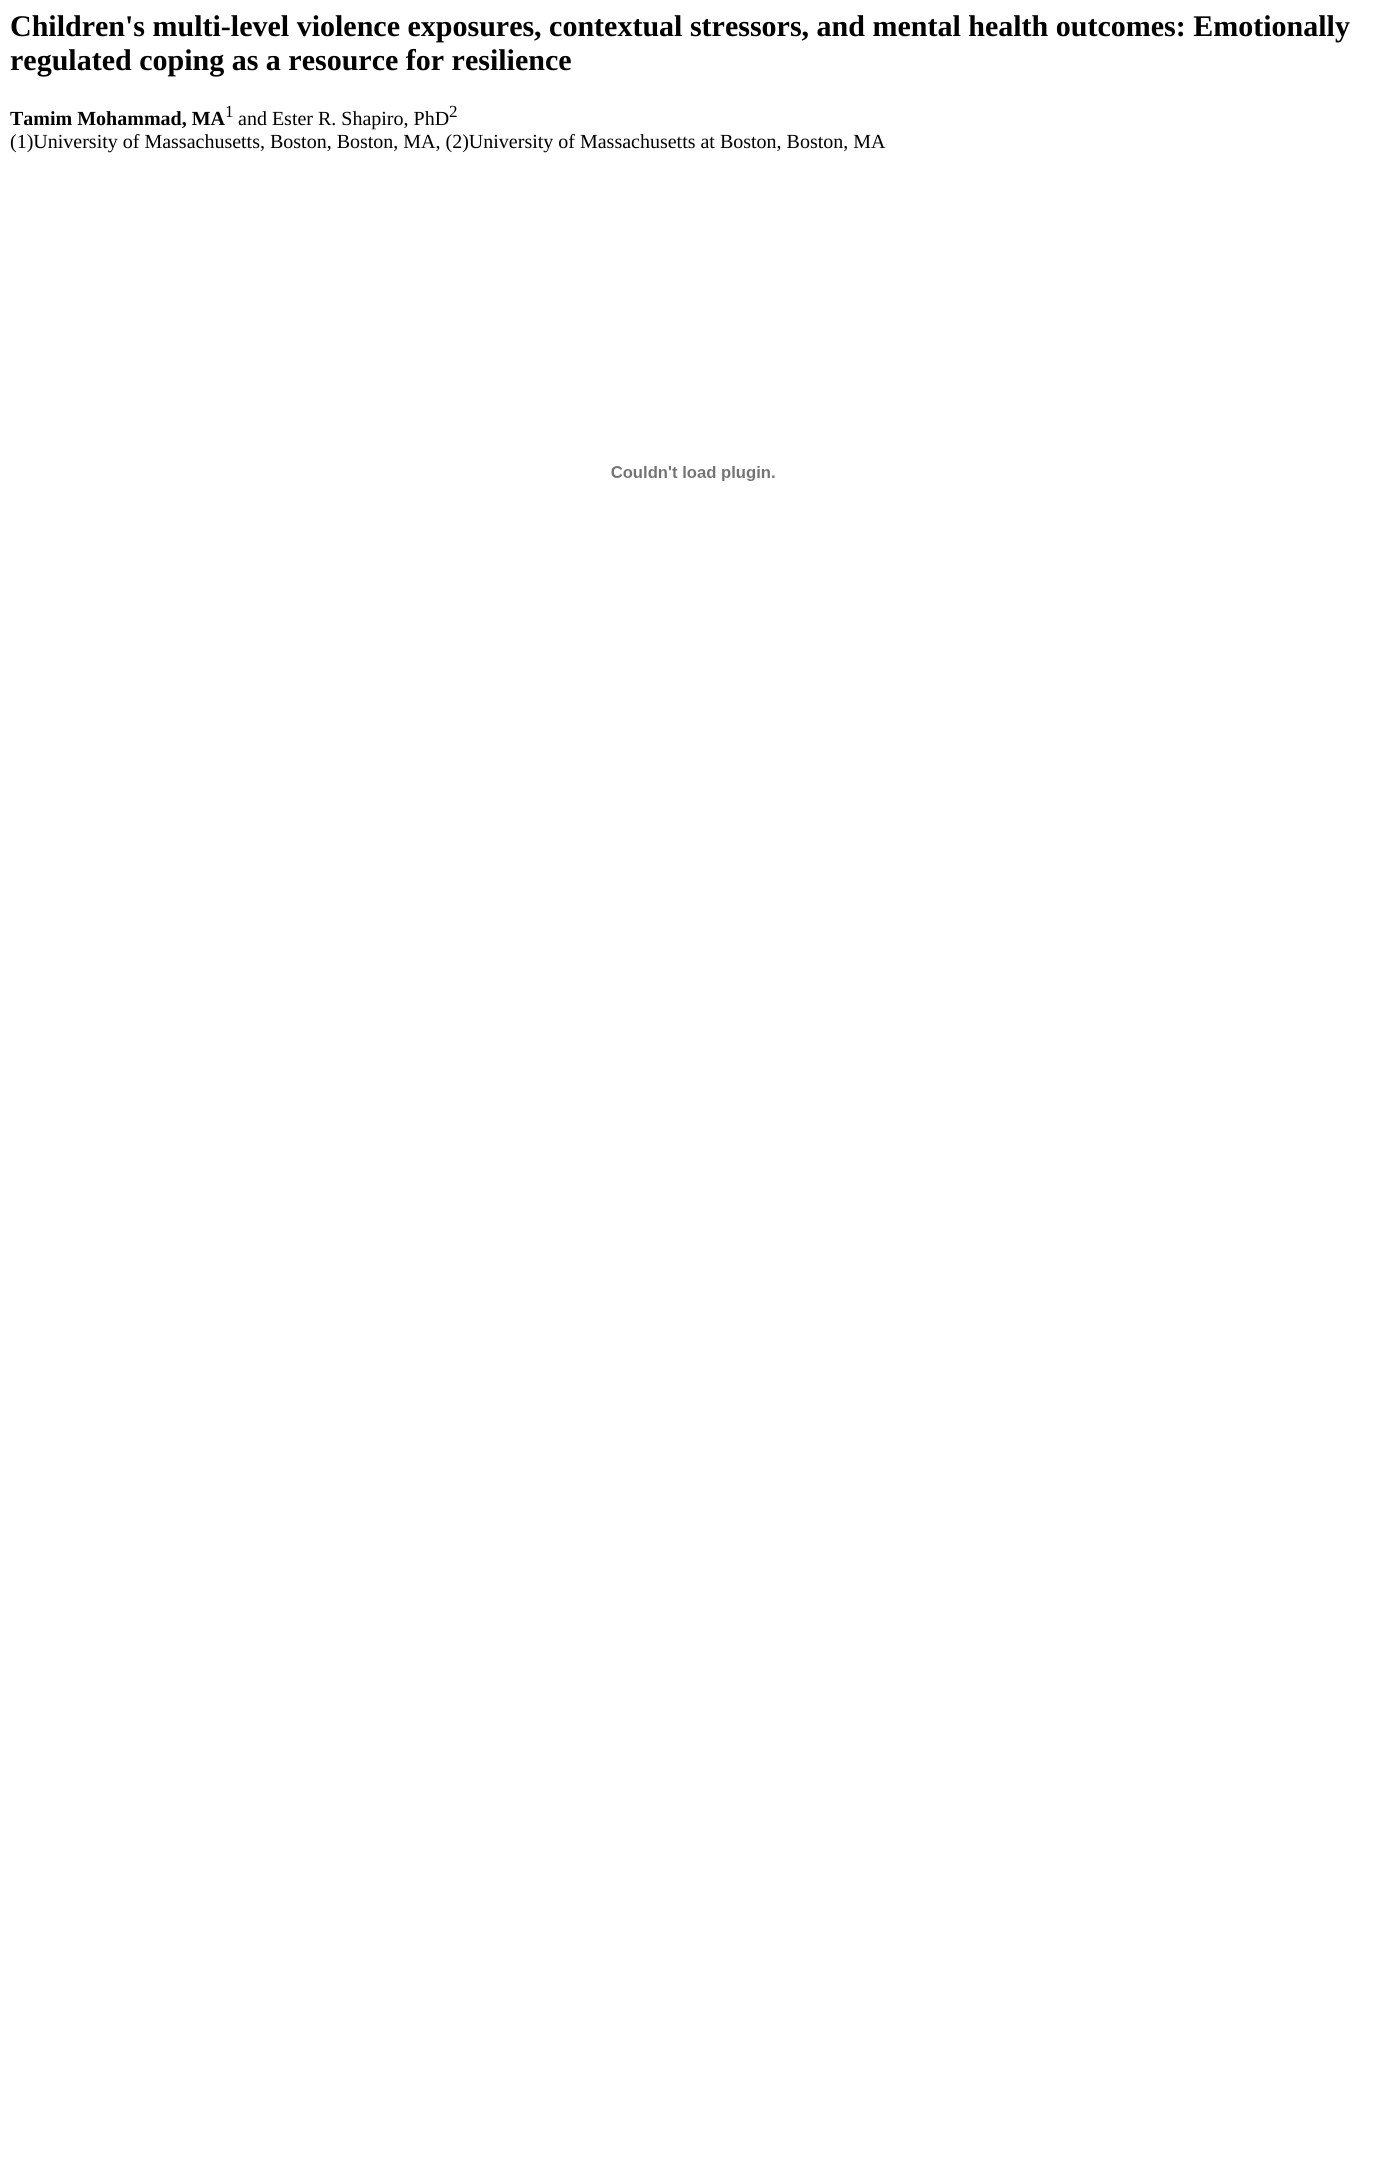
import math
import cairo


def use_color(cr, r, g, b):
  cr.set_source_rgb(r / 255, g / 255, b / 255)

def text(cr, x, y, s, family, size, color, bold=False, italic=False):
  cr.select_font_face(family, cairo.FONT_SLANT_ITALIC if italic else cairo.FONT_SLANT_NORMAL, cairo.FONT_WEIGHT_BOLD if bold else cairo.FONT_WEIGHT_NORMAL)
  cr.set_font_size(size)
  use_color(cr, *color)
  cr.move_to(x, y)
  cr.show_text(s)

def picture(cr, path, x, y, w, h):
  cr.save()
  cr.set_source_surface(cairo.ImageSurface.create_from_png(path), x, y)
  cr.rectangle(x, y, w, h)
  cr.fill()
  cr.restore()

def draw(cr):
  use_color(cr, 255, 255, 255)
  cr.paint()
  picture(cr, "img_01.png", 611, 466, 164, 15)
  text(cr, 10, 36, "Children's multi-level violence exposures, contextual stressors, and mental health outcomes: Emotionally", "Liberation Serif", 30, (0, 0, 0), bold=True)
  text(cr, 10, 70, "regulated coping as a resource for resilience", "Liberation Serif", 30, (0, 0, 0), bold=True)
  text(cr, 10, 125, "Tamim Mohammad, MA", "Liberation Serif", 20, (0, 0, 0), bold=True)
  text(cr, 225, 117, "1", "Liberation Serif", 17, (0, 0, 0))
  text(cr, 238, 125, "and Ester R. Shapiro, PhD", "Liberation Serif", 20, (0, 0, 0))
  text(cr, 449, 117, "2", "Liberation Serif", 17, (0, 0, 0))
  text(cr, 10, 148, "(1)University of Massachusetts, Boston, Boston, MA, (2)University of Massachusetts at Boston, Boston, MA", "Liberation Serif", 20, (0, 0, 0))


surface = cairo.ImageSurface(cairo.FORMAT_RGB24, 1386, 2159)
cr = cairo.Context(surface)
options = cairo.FontOptions()
options.set_hint_metrics(cairo.HINT_METRICS_OFF)
options.set_hint_style(cairo.HINT_STYLE_NONE)
cr.set_font_options(options)
cr.set_miter_limit(4)
draw(cr)
surface.write_to_png("out.png")
